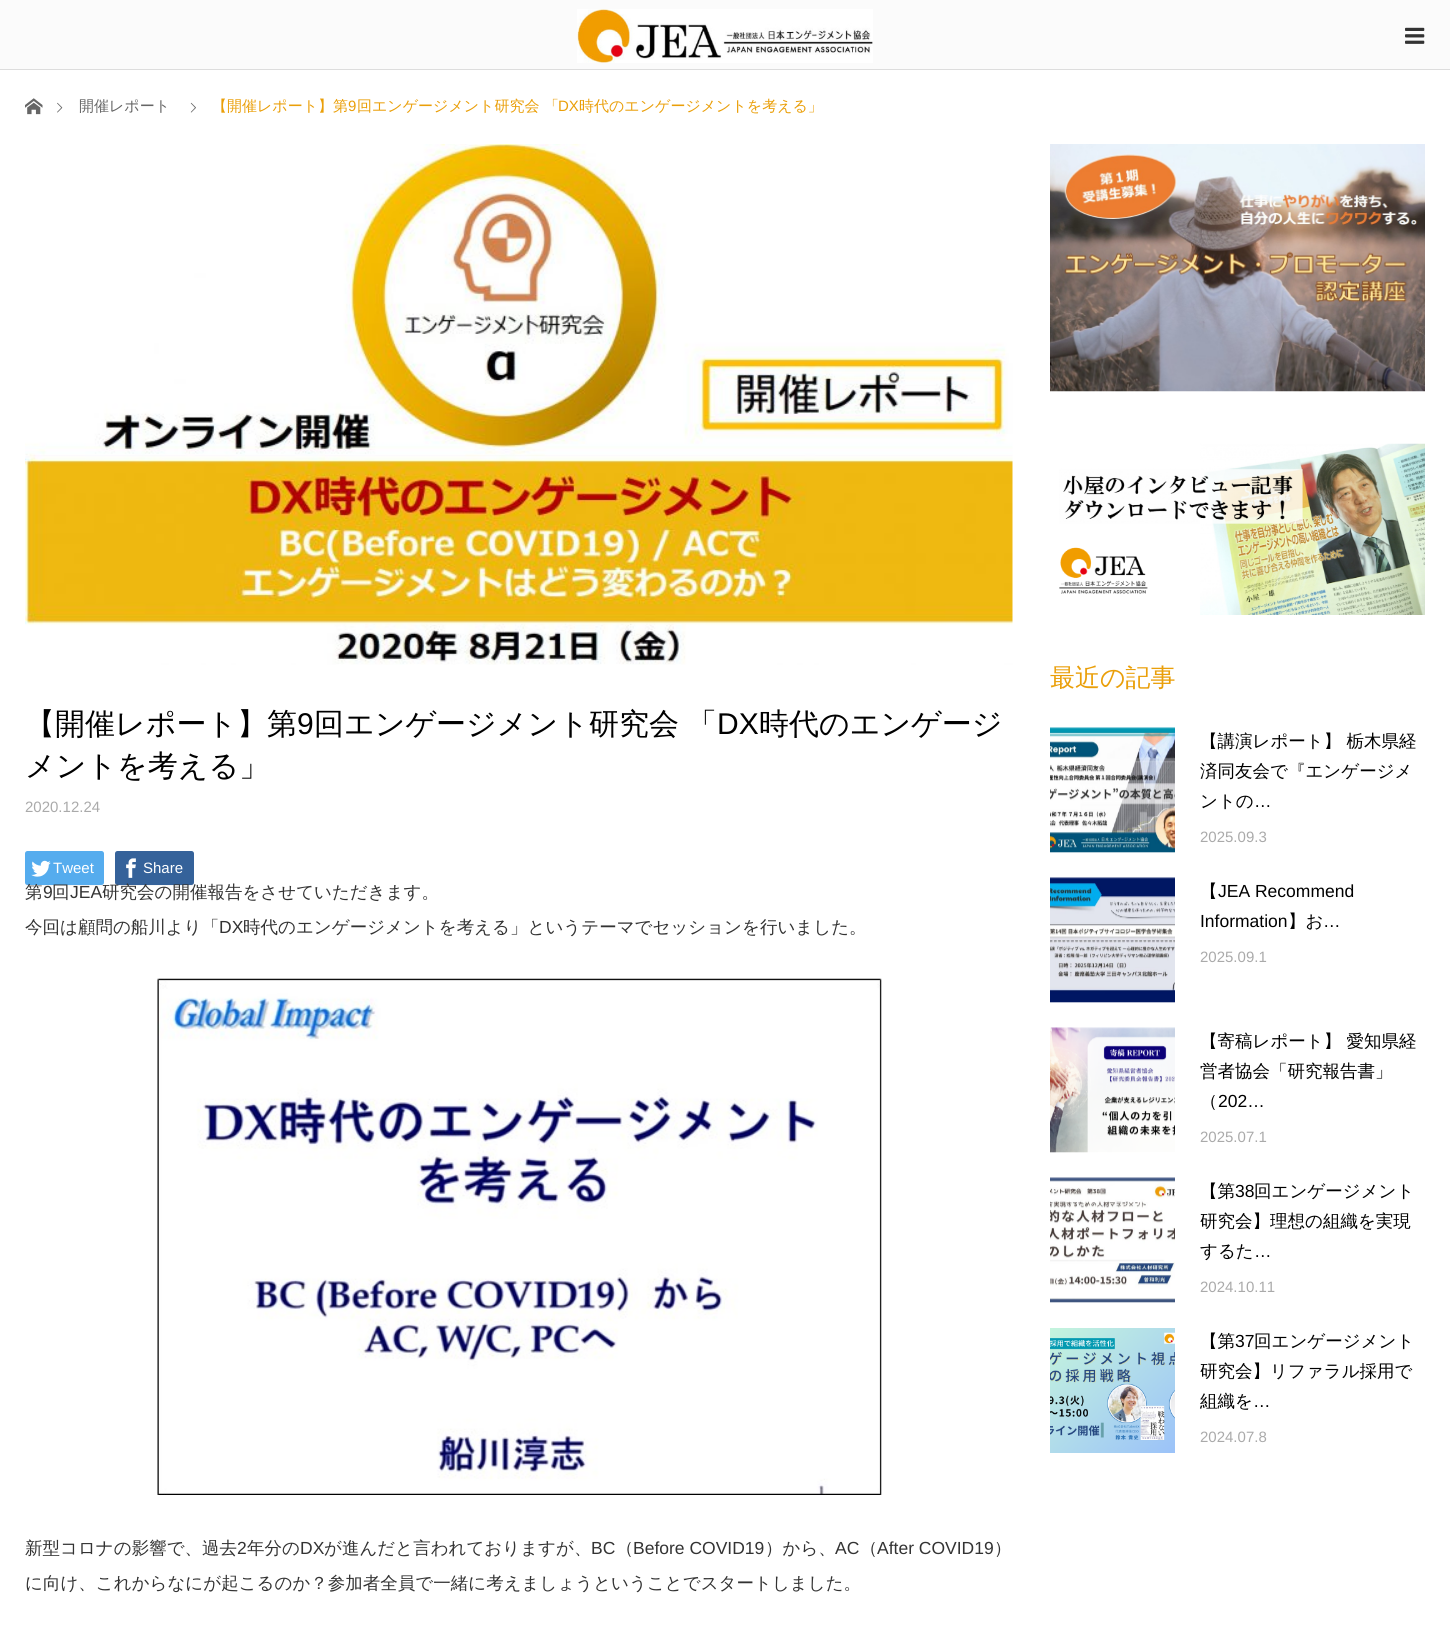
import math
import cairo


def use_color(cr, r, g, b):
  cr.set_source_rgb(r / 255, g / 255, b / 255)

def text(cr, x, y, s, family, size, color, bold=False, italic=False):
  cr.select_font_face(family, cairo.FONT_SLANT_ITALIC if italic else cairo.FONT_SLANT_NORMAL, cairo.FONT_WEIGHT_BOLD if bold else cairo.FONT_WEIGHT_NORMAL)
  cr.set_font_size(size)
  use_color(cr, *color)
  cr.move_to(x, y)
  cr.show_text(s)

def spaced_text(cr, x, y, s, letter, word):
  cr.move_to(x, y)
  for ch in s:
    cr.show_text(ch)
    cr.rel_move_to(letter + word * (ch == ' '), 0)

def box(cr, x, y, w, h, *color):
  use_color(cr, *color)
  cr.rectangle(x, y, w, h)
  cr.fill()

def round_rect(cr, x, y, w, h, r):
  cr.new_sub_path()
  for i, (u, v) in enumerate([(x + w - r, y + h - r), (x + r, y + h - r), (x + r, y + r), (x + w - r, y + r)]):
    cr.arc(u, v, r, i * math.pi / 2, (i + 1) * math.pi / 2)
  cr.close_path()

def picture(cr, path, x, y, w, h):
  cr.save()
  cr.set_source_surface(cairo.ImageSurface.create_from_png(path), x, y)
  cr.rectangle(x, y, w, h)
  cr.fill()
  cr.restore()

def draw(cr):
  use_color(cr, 255, 255, 255)
  cr.paint()
  box(cr, 0, 0, 1450, 69, 251, 251, 251)
  box(cr, 0, 69, 1450, 1, 221, 221, 221)
  picture(cr, "img_01.png", 577, 9, 296, 54)
  picture(cr, "img_02.png", 1405, 27, 20, 17)
  picture(cr, "img_03.png", 25, 98, 18, 17)
  picture(cr, "img_04.png", 57, 102, 6, 11)
  picture(cr, "img_05.png", 190, 102, 6, 11)
  picture(cr, "img_06.png", 25, 143, 988, 522)
  use_color(cr, 247, 247, 247)
  cr.new_path()
  cr.move_to(25, 882)
  cr.curve_to(25, 884, 25, 885, 27, 886)
  cr.line_to(89, 886)
  cr.curve_to(106, 886, 104, 889, 104, 874)
  cr.line_to(104, 854)
  cr.line_to(104, 882)
  cr.curve_to(104, 884, 103, 885, 101, 885)
  cr.line_to(28, 885)
  cr.curve_to(26, 885, 25, 884, 25, 882)
  cr.close_path()
  cr.fill()
  use_color(cr, 85, 172, 238)
  round_rect(cr, 25, 851, 79, 34, 2.5)
  cr.fill()
  picture(cr, "img_07.png", 31, 860, 20, 17)
  use_color(cr, 247, 247, 247)
  cr.new_path()
  cr.move_to(115, 882)
  cr.curve_to(115, 884, 115, 885, 117, 886)
  cr.line_to(179, 886)
  cr.curve_to(196, 886, 194, 889, 194, 874)
  cr.line_to(194, 854)
  cr.line_to(194, 882)
  cr.curve_to(194, 884, 193, 885, 191, 885)
  cr.line_to(118, 885)
  cr.curve_to(116, 885, 115, 884, 115, 882)
  cr.close_path()
  cr.fill()
  use_color(cr, 53, 98, 154)
  round_rect(cr, 115, 851, 79, 34, 2.5)
  cr.fill()
  picture(cr, "img_08.png", 126, 858, 10, 20)
  picture(cr, "img_09.png", 157, 978, 725, 517)
  picture(cr, "img_10.png", 1050, 144, 375, 248)
  picture(cr, "img_11.png", 1059, 443, 366, 172)
  picture(cr, "img_12.png", 1050, 727, 125, 126)
  picture(cr, "img_13.png", 1050, 877, 125, 126)
  picture(cr, "img_14.png", 1050, 1027, 125, 126)
  picture(cr, "img_15.png", 1050, 1177, 125, 126)
  picture(cr, "img_16.png", 1050, 1328, 125, 125)
  text(cr, 79, 111, "開催レポート", "WenQuanYi Zen Hei Medium", 15, (102, 102, 102))
  text(cr, 212, 111, "【開催レポート】第", "WenQuanYi Zen Hei Medium", 15, (234, 159, 9))
  text(cr, 348, 111, "9", "Liberation Sans", 15, (234, 159, 9))
  text(cr, 357, 111, "回エンゲージメント研究会 「", "WenQuanYi Zen Hei Medium", 15, (234, 159, 9))
  text(cr, 558, 111, "DX", "Liberation Sans", 15, (234, 159, 9))
  text(cr, 579, 111, "時代のエンゲージメントを考える」", "WenQuanYi Zen Hei Medium", 15, (234, 159, 9))
  text(cr, 25, 734, "【開催レポート】第", "WenQuanYi Zen Hei Medium", 30, (0, 0, 0))
  text(cr, 297, 734, "9", "Liberation Sans", 30, (0, 0, 0))
  cr.select_font_face("WenQuanYi Zen Hei Medium")
  spaced_text(cr, 314, 734, "回エンゲージメント研究会 「", 0, -1)
  text(cr, 717, 734, "DX", "Liberation Sans", 30, (0, 0, 0))
  text(cr, 759, 734, "時代のエンゲージ", "WenQuanYi Zen Hei Medium", 30, (0, 0, 0))
  text(cr, 25, 776, "メントを考える」", "WenQuanYi Zen Hei Medium", 30, (0, 0, 0))
  text(cr, 25, 812, "2020.12.24", "Liberation Sans", 15, (170, 170, 170))
  text(cr, 53, 873, "Tweet", "Liberation Sans", 15, (255, 255, 255))
  text(cr, 143, 873, "Share", "Liberation Sans", 15, (255, 255, 255))
  text(cr, 25, 898, "第", "WenQuanYi Zen Hei Medium", 17.5, (51, 51, 51))
  text(cr, 43, 898, "9", "Liberation Sans", 17.5, (51, 51, 51))
  text(cr, 52, 898, "回", "WenQuanYi Zen Hei Medium", 17.5, (51, 51, 51))
  text(cr, 70, 898, "JEA", "Liberation Sans", 17.5, (51, 51, 51))
  text(cr, 102, 898, "研究会の開催報告をさせていただきます。", "WenQuanYi Zen Hei Medium", 17.5, (51, 51, 51))
  text(cr, 25, 933, "今回は顧問の船川より「", "WenQuanYi Zen Hei Medium", 17.5, (51, 51, 51))
  text(cr, 219, 933, "DX", "Liberation Sans", 17.5, (51, 51, 51))
  text(cr, 243, 933, "時代のエンゲージメントを考える」というテーマでセッションを行いました。", "WenQuanYi Zen Hei Medium", 17.5, (51, 51, 51))
  text(cr, 25, 1554, "新型コロナの影響で、過去", "WenQuanYi Zen Hei Medium", 17.5, (51, 51, 51))
  text(cr, 237, 1554, "2", "Liberation Sans", 17.5, (51, 51, 51))
  text(cr, 247, 1554, "年分の", "WenQuanYi Zen Hei Medium", 17.5, (51, 51, 51))
  text(cr, 300, 1554, "DX", "Liberation Sans", 17.5, (51, 51, 51))
  text(cr, 324, 1554, "が進んだと言われておりますが、", "WenQuanYi Zen Hei Medium", 17.5, (51, 51, 51))
  text(cr, 591, 1554, "BC", "Liberation Sans", 17.5, (51, 51, 51))
  text(cr, 616, 1554, "（", "WenQuanYi Zen Hei Medium", 17.5, (51, 51, 51))
  text(cr, 633, 1554, "Before COVID19", "Liberation Sans", 17.5, (51, 51, 51))
  text(cr, 765, 1554, "）から、", "WenQuanYi Zen Hei Medium", 17.5, (51, 51, 51))
  text(cr, 835, 1554, "AC", "Liberation Sans", 17.5, (51, 51, 51))
  text(cr, 860, 1554, "（", "WenQuanYi Zen Hei Medium", 17.5, (51, 51, 51))
  text(cr, 877, 1554, "After COVID19", "Liberation Sans", 17.5, (51, 51, 51))
  text(cr, 994, 1554, "）", "WenQuanYi Zen Hei Medium", 17.5, (51, 51, 51))
  text(cr, 25, 1589, "に向け、これからなにが起こるのか？参加者全員で一緒に考えましょうということでスタートしました。", "WenQuanYi Zen Hei Medium", 17.5, (51, 51, 51))
  text(cr, 1050, 686, "最近の記事", "WenQuanYi Zen Hei Medium", 25, (234, 159, 9))
  text(cr, 1200, 747, "【講演レポート】 栃木県経", "WenQuanYi Zen Hei Medium", 17.5, (0, 0, 0))
  text(cr, 1200, 777, "済同友会で『エンゲージメ", "WenQuanYi Zen Hei Medium", 17.5, (0, 0, 0))
  text(cr, 1200, 807, "ントの", "WenQuanYi Zen Hei Medium", 17.5, (0, 0, 0))
  text(cr, 1254, 807, "…", "Liberation Sans", 17.5, (0, 0, 0))
  text(cr, 1200, 842, "2025.09.3", "Liberation Sans", 15, (170, 170, 170))
  text(cr, 1200, 897, "【", "WenQuanYi Zen Hei Medium", 17.5, (0, 0, 0))
  text(cr, 1218, 897, "JEA Recommend", "Liberation Sans", 17.5, (0, 0, 0))
  text(cr, 1200, 927, "Information", "Liberation Sans", 17.5, (0, 0, 0))
  text(cr, 1288, 927, "】お", "WenQuanYi Zen Hei Medium", 17.5, (0, 0, 0))
  text(cr, 1323, 927, "…", "Liberation Sans", 17.5, (0, 0, 0))
  text(cr, 1200, 962, "2025.09.1", "Liberation Sans", 15, (170, 170, 170))
  text(cr, 1200, 1047, "【寄稿レポート】 愛知県経", "WenQuanYi Zen Hei Medium", 17.5, (0, 0, 0))
  text(cr, 1200, 1077, "営者協会「研究報告書」", "WenQuanYi Zen Hei Medium", 17.5, (0, 0, 0))
  text(cr, 1200, 1107, "（", "WenQuanYi Zen Hei Medium", 17.5, (0, 0, 0))
  text(cr, 1218, 1107, "202…", "Liberation Sans", 17.5, (0, 0, 0))
  text(cr, 1200, 1142, "2025.07.1", "Liberation Sans", 15, (170, 170, 170))
  text(cr, 1200, 1197, "【第", "WenQuanYi Zen Hei Medium", 17.5, (0, 0, 0))
  text(cr, 1235, 1197, "38", "Liberation Sans", 17.5, (0, 0, 0))
  text(cr, 1254, 1197, "回エンゲージメント", "WenQuanYi Zen Hei Medium", 17.5, (0, 0, 0))
  text(cr, 1200, 1227, "研究会】理想の組織を実現", "WenQuanYi Zen Hei Medium", 17.5, (0, 0, 0))
  text(cr, 1200, 1257, "するた", "WenQuanYi Zen Hei Medium", 17.5, (0, 0, 0))
  text(cr, 1254, 1257, "…", "Liberation Sans", 17.5, (0, 0, 0))
  text(cr, 1200, 1292, "2024.10.11", "Liberation Sans", 15, (170, 170, 170))
  text(cr, 1200, 1347, "【第", "WenQuanYi Zen Hei Medium", 17.5, (0, 0, 0))
  text(cr, 1235, 1347, "37", "Liberation Sans", 17.5, (0, 0, 0))
  text(cr, 1254, 1347, "回エンゲージメント", "WenQuanYi Zen Hei Medium", 17.5, (0, 0, 0))
  text(cr, 1200, 1377, "研究会】リファラル採用で", "WenQuanYi Zen Hei Medium", 17.5, (0, 0, 0))
  text(cr, 1200, 1407, "組織を", "WenQuanYi Zen Hei Medium", 17.5, (0, 0, 0))
  text(cr, 1253, 1407, "…", "Liberation Sans", 17.5, (0, 0, 0))
  text(cr, 1200, 1442, "2024.07.8", "Liberation Sans", 15, (170, 170, 170))


surface = cairo.ImageSurface(cairo.FORMAT_RGB24, 1450, 1650)
cr = cairo.Context(surface)
options = cairo.FontOptions()
options.set_hint_metrics(cairo.HINT_METRICS_OFF)
options.set_hint_style(cairo.HINT_STYLE_NONE)
cr.set_font_options(options)
cr.set_miter_limit(4)
draw(cr)
surface.write_to_png("out.png")
